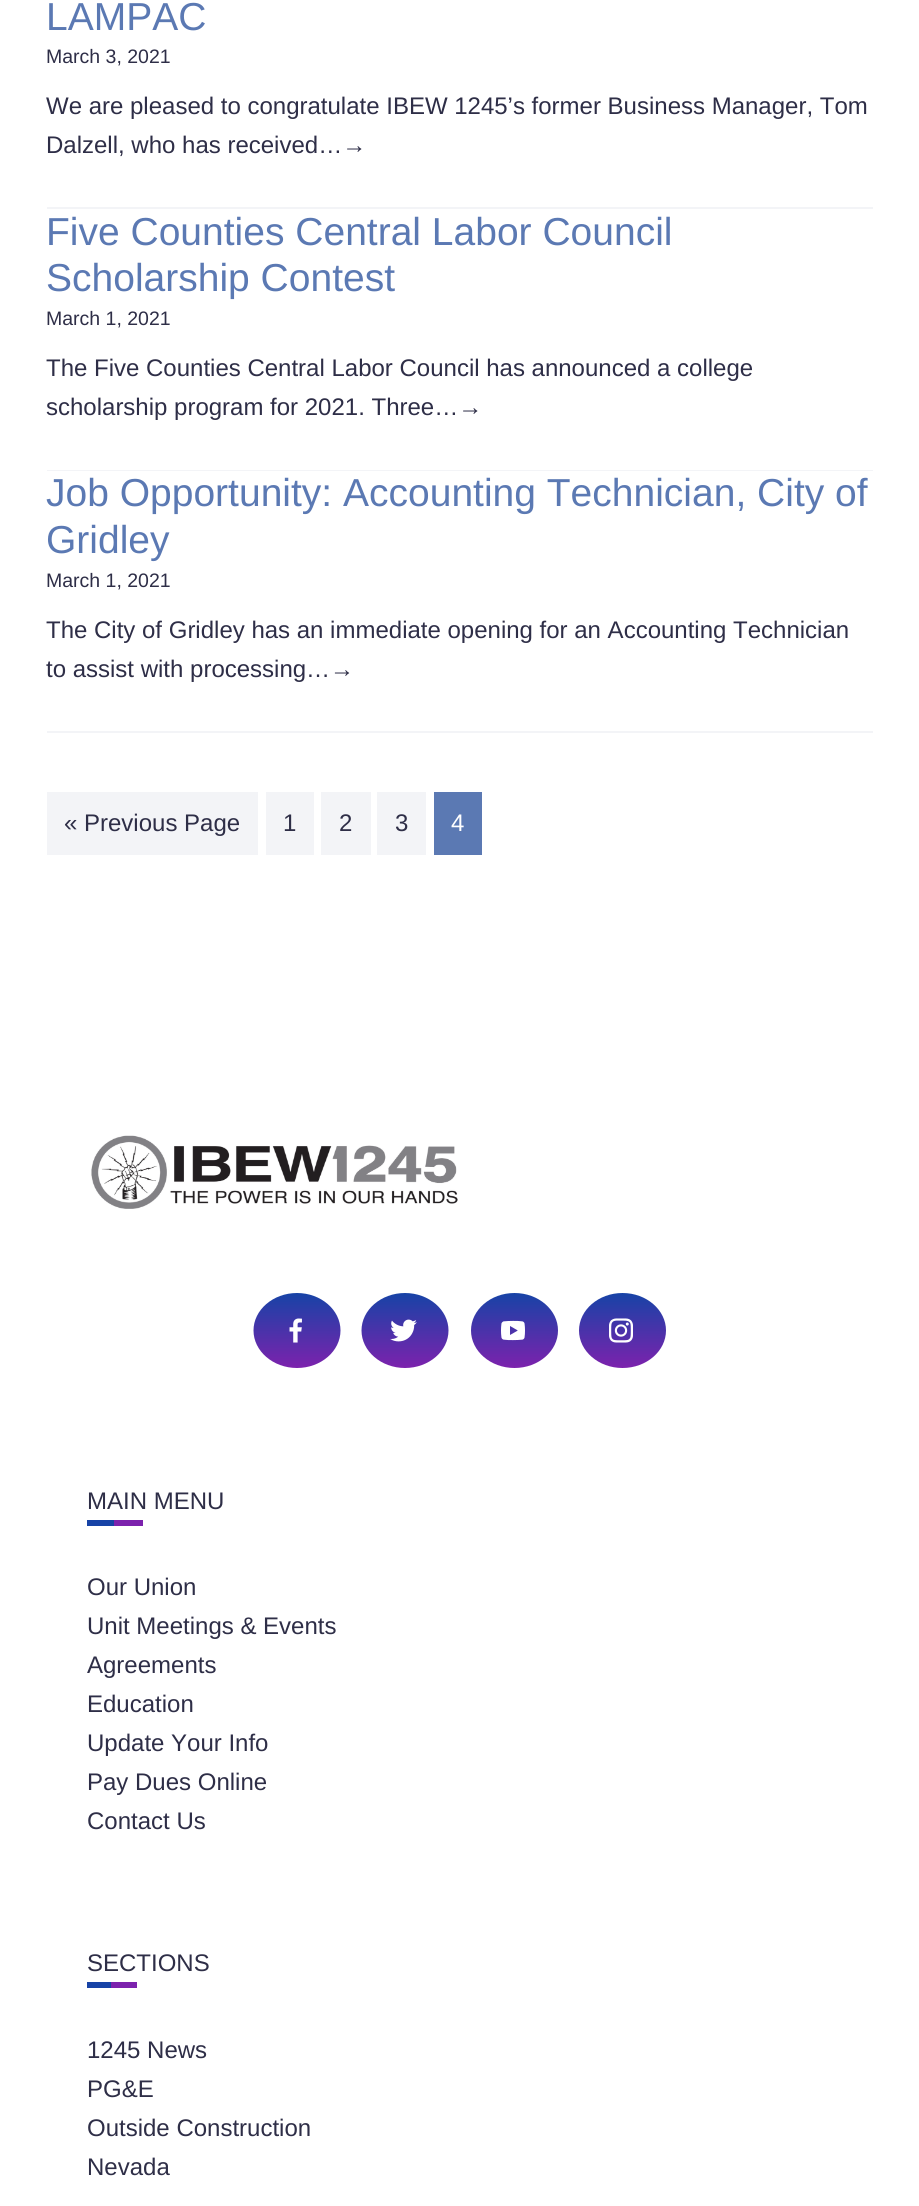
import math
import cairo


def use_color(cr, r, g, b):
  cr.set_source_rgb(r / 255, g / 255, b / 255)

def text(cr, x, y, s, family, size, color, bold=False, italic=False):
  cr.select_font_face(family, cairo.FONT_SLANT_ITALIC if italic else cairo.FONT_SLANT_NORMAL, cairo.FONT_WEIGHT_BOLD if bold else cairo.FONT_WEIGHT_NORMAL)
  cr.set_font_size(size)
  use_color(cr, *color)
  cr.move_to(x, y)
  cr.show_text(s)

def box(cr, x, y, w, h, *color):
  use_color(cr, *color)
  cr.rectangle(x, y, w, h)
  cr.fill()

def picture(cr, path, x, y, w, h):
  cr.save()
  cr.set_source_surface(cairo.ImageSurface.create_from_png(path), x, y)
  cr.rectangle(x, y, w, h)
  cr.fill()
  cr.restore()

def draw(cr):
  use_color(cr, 255, 255, 255)
  cr.paint()
  box(cr, 47, 207, 826, 2, 243, 244, 247)
  box(cr, 47, 470, 826, 1, 243, 244, 247)
  box(cr, 47, 731, 826, 2, 243, 244, 247)
  box(cr, 47, 792, 211, 63, 243, 244, 247)
  box(cr, 266, 792, 48, 63, 243, 244, 247)
  box(cr, 321, 792, 50, 63, 243, 244, 247)
  box(cr, 377, 792, 49, 63, 243, 244, 247)
  box(cr, 434, 792, 48, 63, 91, 121, 179)
  picture(cr, "img_01.png", 91, 1135, 367, 74)
  gradient = cairo.LinearGradient(297, 1293, 297, 1368)
  gradient.add_color_stop_rgba(0, 0.09, 0.263, 0.651, 1)
  gradient.add_color_stop_rgba(1, 0.486, 0.133, 0.678, 1)
  cr.set_source(gradient)
  cr.new_path()
  cr.move_to(297, 1293)
  cr.curve_to(321, 1293, 340.5, 1310, 340.5, 1330.5)
  cr.curve_to(340.5, 1351, 321, 1368, 297, 1368)
  cr.curve_to(273, 1368, 253.5, 1351, 253.5, 1330.5)
  cr.curve_to(253.5, 1310, 273, 1293, 297, 1293)
  cr.close_path()
  cr.fill()
  picture(cr, "img_02.png", 289, 1318, 13, 25)
  gradient = cairo.LinearGradient(405, 1293, 405, 1368)
  gradient.add_color_stop_rgba(0, 0.09, 0.263, 0.651, 1)
  gradient.add_color_stop_rgba(1, 0.486, 0.133, 0.678, 1)
  cr.set_source(gradient)
  cr.new_path()
  cr.move_to(405, 1293)
  cr.curve_to(429, 1293, 448.5, 1310, 448.5, 1330.5)
  cr.curve_to(448.5, 1351, 429, 1368, 405, 1368)
  cr.curve_to(381, 1368, 361.5, 1351, 361.5, 1330.5)
  cr.curve_to(361.5, 1310, 381, 1293, 405, 1293)
  cr.close_path()
  cr.fill()
  picture(cr, "img_03.png", 390, 1319, 27, 23)
  gradient = cairo.LinearGradient(515, 1293, 515, 1368)
  gradient.add_color_stop_rgba(0, 0.09, 0.263, 0.651, 1)
  gradient.add_color_stop_rgba(1, 0.486, 0.133, 0.678, 1)
  cr.set_source(gradient)
  cr.new_path()
  cr.move_to(514.5, 1293)
  cr.curve_to(538.5, 1293, 558, 1310, 558, 1330.5)
  cr.curve_to(558, 1351, 538.5, 1368, 514.5, 1368)
  cr.curve_to(490.5, 1368, 471, 1351, 471, 1330.5)
  cr.curve_to(471, 1310, 490.5, 1293, 514.5, 1293)
  cr.close_path()
  cr.fill()
  picture(cr, "img_04.png", 501, 1320, 24, 21)
  gradient = cairo.LinearGradient(623, 1293, 623, 1368)
  gradient.add_color_stop_rgba(0, 0.09, 0.263, 0.651, 1)
  gradient.add_color_stop_rgba(1, 0.486, 0.133, 0.678, 1)
  cr.set_source(gradient)
  cr.new_path()
  cr.move_to(622.5, 1293)
  cr.curve_to(646.5, 1293, 666, 1310, 666, 1330.5)
  cr.curve_to(666, 1351, 646.5, 1368, 622.5, 1368)
  cr.curve_to(598.5, 1368, 579, 1351, 579, 1330.5)
  cr.curve_to(579, 1310, 598.5, 1293, 622.5, 1293)
  cr.close_path()
  cr.fill()
  picture(cr, "img_05.png", 609, 1318, 24, 25)
  box(cr, 87, 1520, 27, 6, 23, 67, 166)
  box(cr, 114, 1520, 29, 6, 124, 34, 173)
  box(cr, 87, 1982, 24, 6, 23, 67, 166)
  box(cr, 111, 1982, 26, 6, 124, 34, 173)
  text(cr, 46, 30, "LAMPAC", "Liberation Sans", 39, (91, 121, 179))
  text(cr, 46, 63, "March 3, 2021", "Liberation Sans", 19.5, (46, 46, 71))
  text(cr, 46, 114, "We are pleased to congratulate IBEW 1245’s former Business Manager, Tom", "Liberation Sans", 24, (46, 46, 71))
  text(cr, 46, 153, "Dalzell, who has received…→", "Liberation Sans", 24, (46, 46, 71))
  text(cr, 46, 245, "Five Counties Central Labor Council", "Liberation Sans", 39, (91, 121, 179))
  text(cr, 46, 291, "Scholarship Contest", "Liberation Sans", 39, (91, 121, 179))
  text(cr, 46, 325, "March 1, 2021", "Liberation Sans", 19.5, (46, 46, 71))
  text(cr, 46, 376, "The Five Counties Central Labor Council has announced a college", "Liberation Sans", 24, (46, 46, 71))
  text(cr, 46, 415, "scholarship program for 2021. Three…→", "Liberation Sans", 24, (46, 46, 71))
  text(cr, 46, 506, "Job Opportunity: Accounting Technician, City of", "Liberation Sans", 39, (91, 121, 179))
  text(cr, 46, 553, "Gridley", "Liberation Sans", 39, (91, 121, 179))
  text(cr, 46, 587, "March 1, 2021", "Liberation Sans", 19.5, (46, 46, 71))
  text(cr, 46, 638, "The City of Gridley has an immediate opening for an Accounting Technician", "Liberation Sans", 24, (46, 46, 71))
  text(cr, 46, 677, "to assist with processing…→", "Liberation Sans", 24, (46, 46, 71))
  text(cr, 64, 831, "« Previous Page", "Liberation Sans", 24, (46, 46, 71))
  text(cr, 283, 831, "1", "Liberation Sans", 24, (46, 46, 71))
  text(cr, 339, 831, "2", "Liberation Sans", 24, (46, 46, 71))
  text(cr, 395, 831, "3", "Liberation Sans", 24, (46, 46, 71))
  text(cr, 451, 831, "4", "Liberation Sans", 24, (255, 255, 255))
  text(cr, 87, 1509, "MAIN MENU", "Liberation Sans", 24, (46, 46, 71))
  text(cr, 87, 1595, "Our Union", "Liberation Sans", 24, (46, 46, 71))
  text(cr, 87, 1634, "Unit Meetings & Events", "Liberation Sans", 24, (46, 46, 71))
  text(cr, 87, 1673, "Agreements", "Liberation Sans", 24, (46, 46, 71))
  text(cr, 87, 1712, "Education", "Liberation Sans", 24, (46, 46, 71))
  text(cr, 87, 1751, "Update Your Info", "Liberation Sans", 24, (46, 46, 71))
  text(cr, 87, 1790, "Pay Dues Online", "Liberation Sans", 24, (46, 46, 71))
  text(cr, 87, 1829, "Contact Us", "Liberation Sans", 24, (46, 46, 71))
  text(cr, 87, 1971, "SECTIONS", "Liberation Sans", 24, (46, 46, 71))
  text(cr, 87, 2058, "1245 News", "Liberation Sans", 24, (46, 46, 71))
  text(cr, 87, 2097, "PG&E", "Liberation Sans", 24, (46, 46, 71))
  text(cr, 87, 2136, "Outside Construction", "Liberation Sans", 24, (46, 46, 71))
  text(cr, 87, 2175, "Nevada", "Liberation Sans", 24, (46, 46, 71))


surface = cairo.ImageSurface(cairo.FORMAT_RGB24, 919, 2206)
cr = cairo.Context(surface)
options = cairo.FontOptions()
options.set_hint_metrics(cairo.HINT_METRICS_OFF)
options.set_hint_style(cairo.HINT_STYLE_NONE)
cr.set_font_options(options)
cr.set_miter_limit(4)
draw(cr)
surface.write_to_png("out.png")
